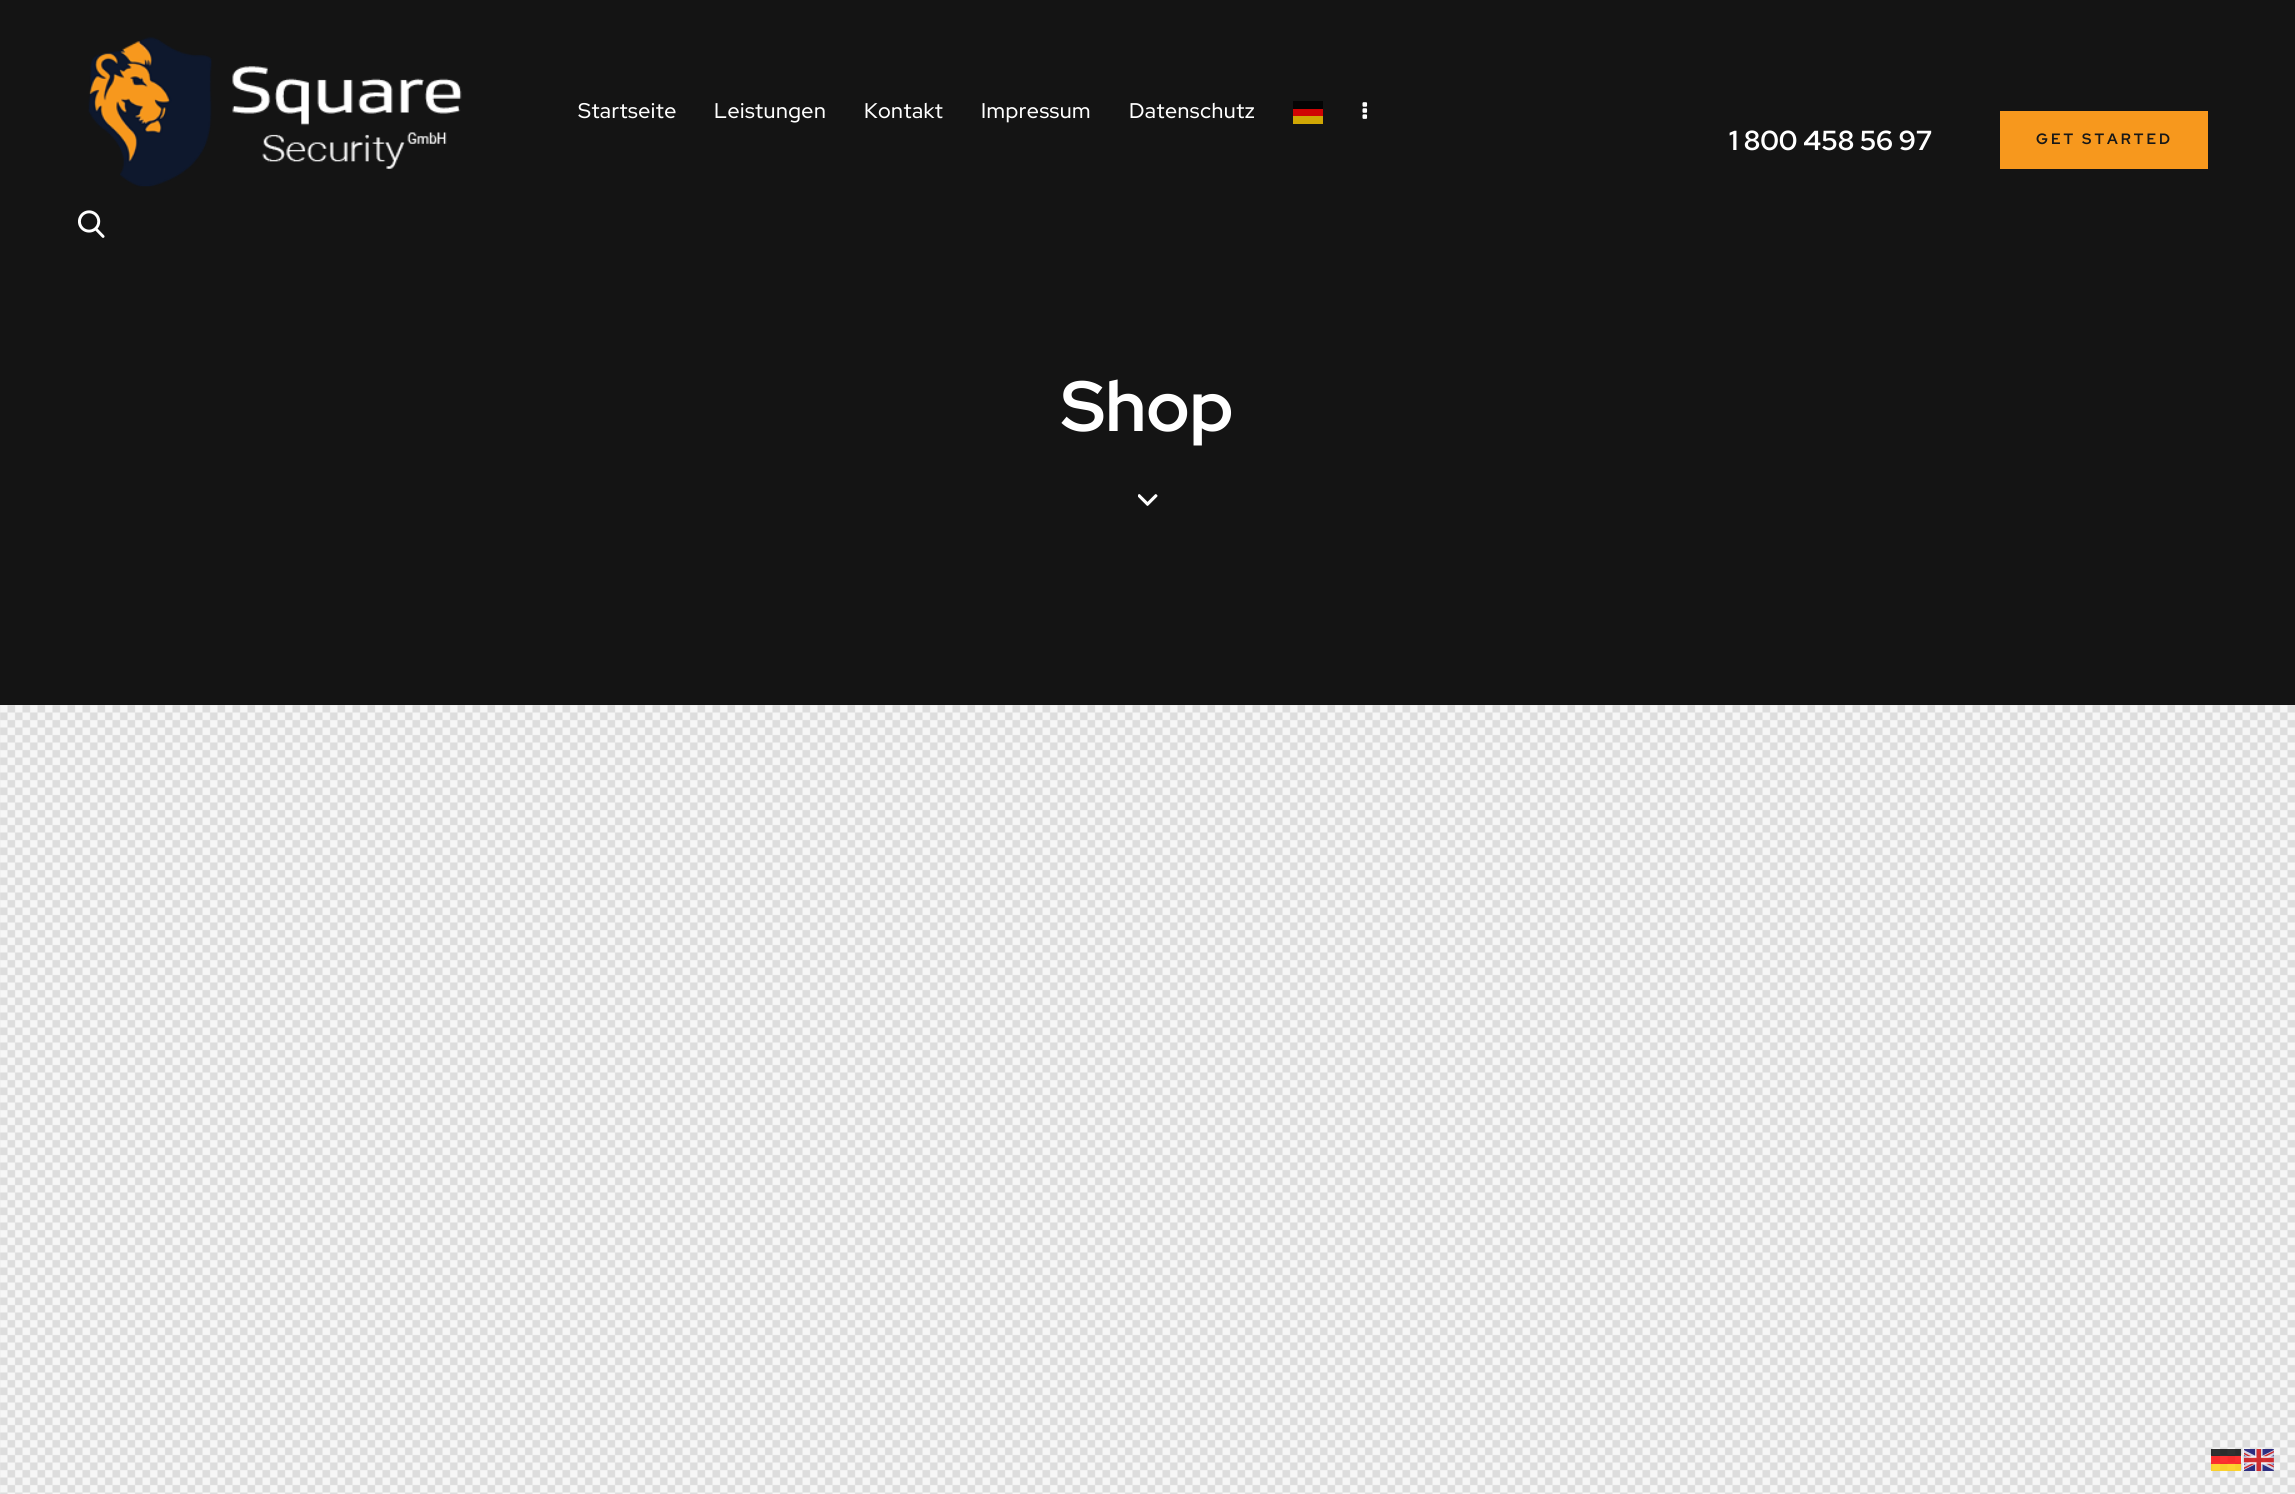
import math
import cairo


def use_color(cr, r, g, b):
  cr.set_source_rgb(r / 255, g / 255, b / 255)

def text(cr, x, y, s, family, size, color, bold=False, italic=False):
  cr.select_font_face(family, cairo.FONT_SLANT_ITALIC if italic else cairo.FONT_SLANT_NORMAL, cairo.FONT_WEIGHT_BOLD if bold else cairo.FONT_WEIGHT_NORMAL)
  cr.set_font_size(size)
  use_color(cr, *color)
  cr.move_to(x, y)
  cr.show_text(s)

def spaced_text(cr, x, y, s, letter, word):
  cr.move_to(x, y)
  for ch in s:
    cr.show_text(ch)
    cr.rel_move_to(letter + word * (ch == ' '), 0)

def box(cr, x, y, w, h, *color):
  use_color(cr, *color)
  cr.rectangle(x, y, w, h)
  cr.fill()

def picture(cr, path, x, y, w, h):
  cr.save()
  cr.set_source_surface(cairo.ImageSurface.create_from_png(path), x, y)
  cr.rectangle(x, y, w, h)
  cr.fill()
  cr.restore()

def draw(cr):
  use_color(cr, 255, 255, 255)
  cr.paint()
  picture(cr, "img_01.png", 0, 705, 2295, 789)
  box(cr, 0, 0, 2295, 705, 20, 20, 20)
  picture(cr, "img_02.png", 88, 37, 374, 150)
  box(cr, 1293, 101, 30, 8, 4, 4, 4)
  box(cr, 1293, 109, 30, 7, 208, 4, 4)
  box(cr, 1293, 116, 30, 8, 208, 167, 4)
  picture(cr, "img_03.png", 1362, 102, 6, 17)
  picture(cr, "img_04.png", 78, 210, 27, 28)
  box(cr, 2000, 111, 208, 58, 247, 152, 29)
  picture(cr, "img_05.png", 1138, 494, 20, 12)
  cr.set_source_rgba(0, 0, 0, 0.8)
  cr.rectangle(2211, 1449, 30, 7)
  cr.fill()
  picture(cr, "img_06.png", 2244, 1449, 30, 22)
  cr.set_source_rgba(1, 0, 0, 0.8)
  cr.rectangle(2211, 1456, 30, 8)
  cr.fill()
  cr.set_source_rgba(1, 0.8, 0, 0.8)
  cr.rectangle(2211, 1464, 30, 7)
  cr.fill()
  cr.select_font_face("Red Hat Display Medium")
  cr.set_font_size(21.25)
  use_color(cr, 255, 255, 255)
  spaced_text(cr, 578, 118, "Startseite", 0.5, 0)
  spaced_text(cr, 714, 118, "Leistungen", 0.5, 0)
  spaced_text(cr, 864, 118, "Kontakt", 0.5, 0)
  spaced_text(cr, 981, 118, "Impressum", 0.5, 0)
  spaced_text(cr, 1129, 118, "Datenschutz", 0.5, 0)
  text(cr, 1729, 150, "1 800 458 56 97", "Red Hat Display", 27.5, (255, 255, 255), bold=True)
  cr.set_font_size(15)
  use_color(cr, 24, 24, 24)
  spaced_text(cr, 2036, 144, "GET STARTED", 3, 0)
  text(cr, 1061, 431, "Shop", "Red Hat Display", 71, (255, 255, 255), bold=True)


surface = cairo.ImageSurface(cairo.FORMAT_RGB24, 2295, 1494)
cr = cairo.Context(surface)
options = cairo.FontOptions()
options.set_hint_metrics(cairo.HINT_METRICS_OFF)
options.set_hint_style(cairo.HINT_STYLE_NONE)
cr.set_font_options(options)
cr.set_miter_limit(4)
draw(cr)
surface.write_to_png("out.png")
